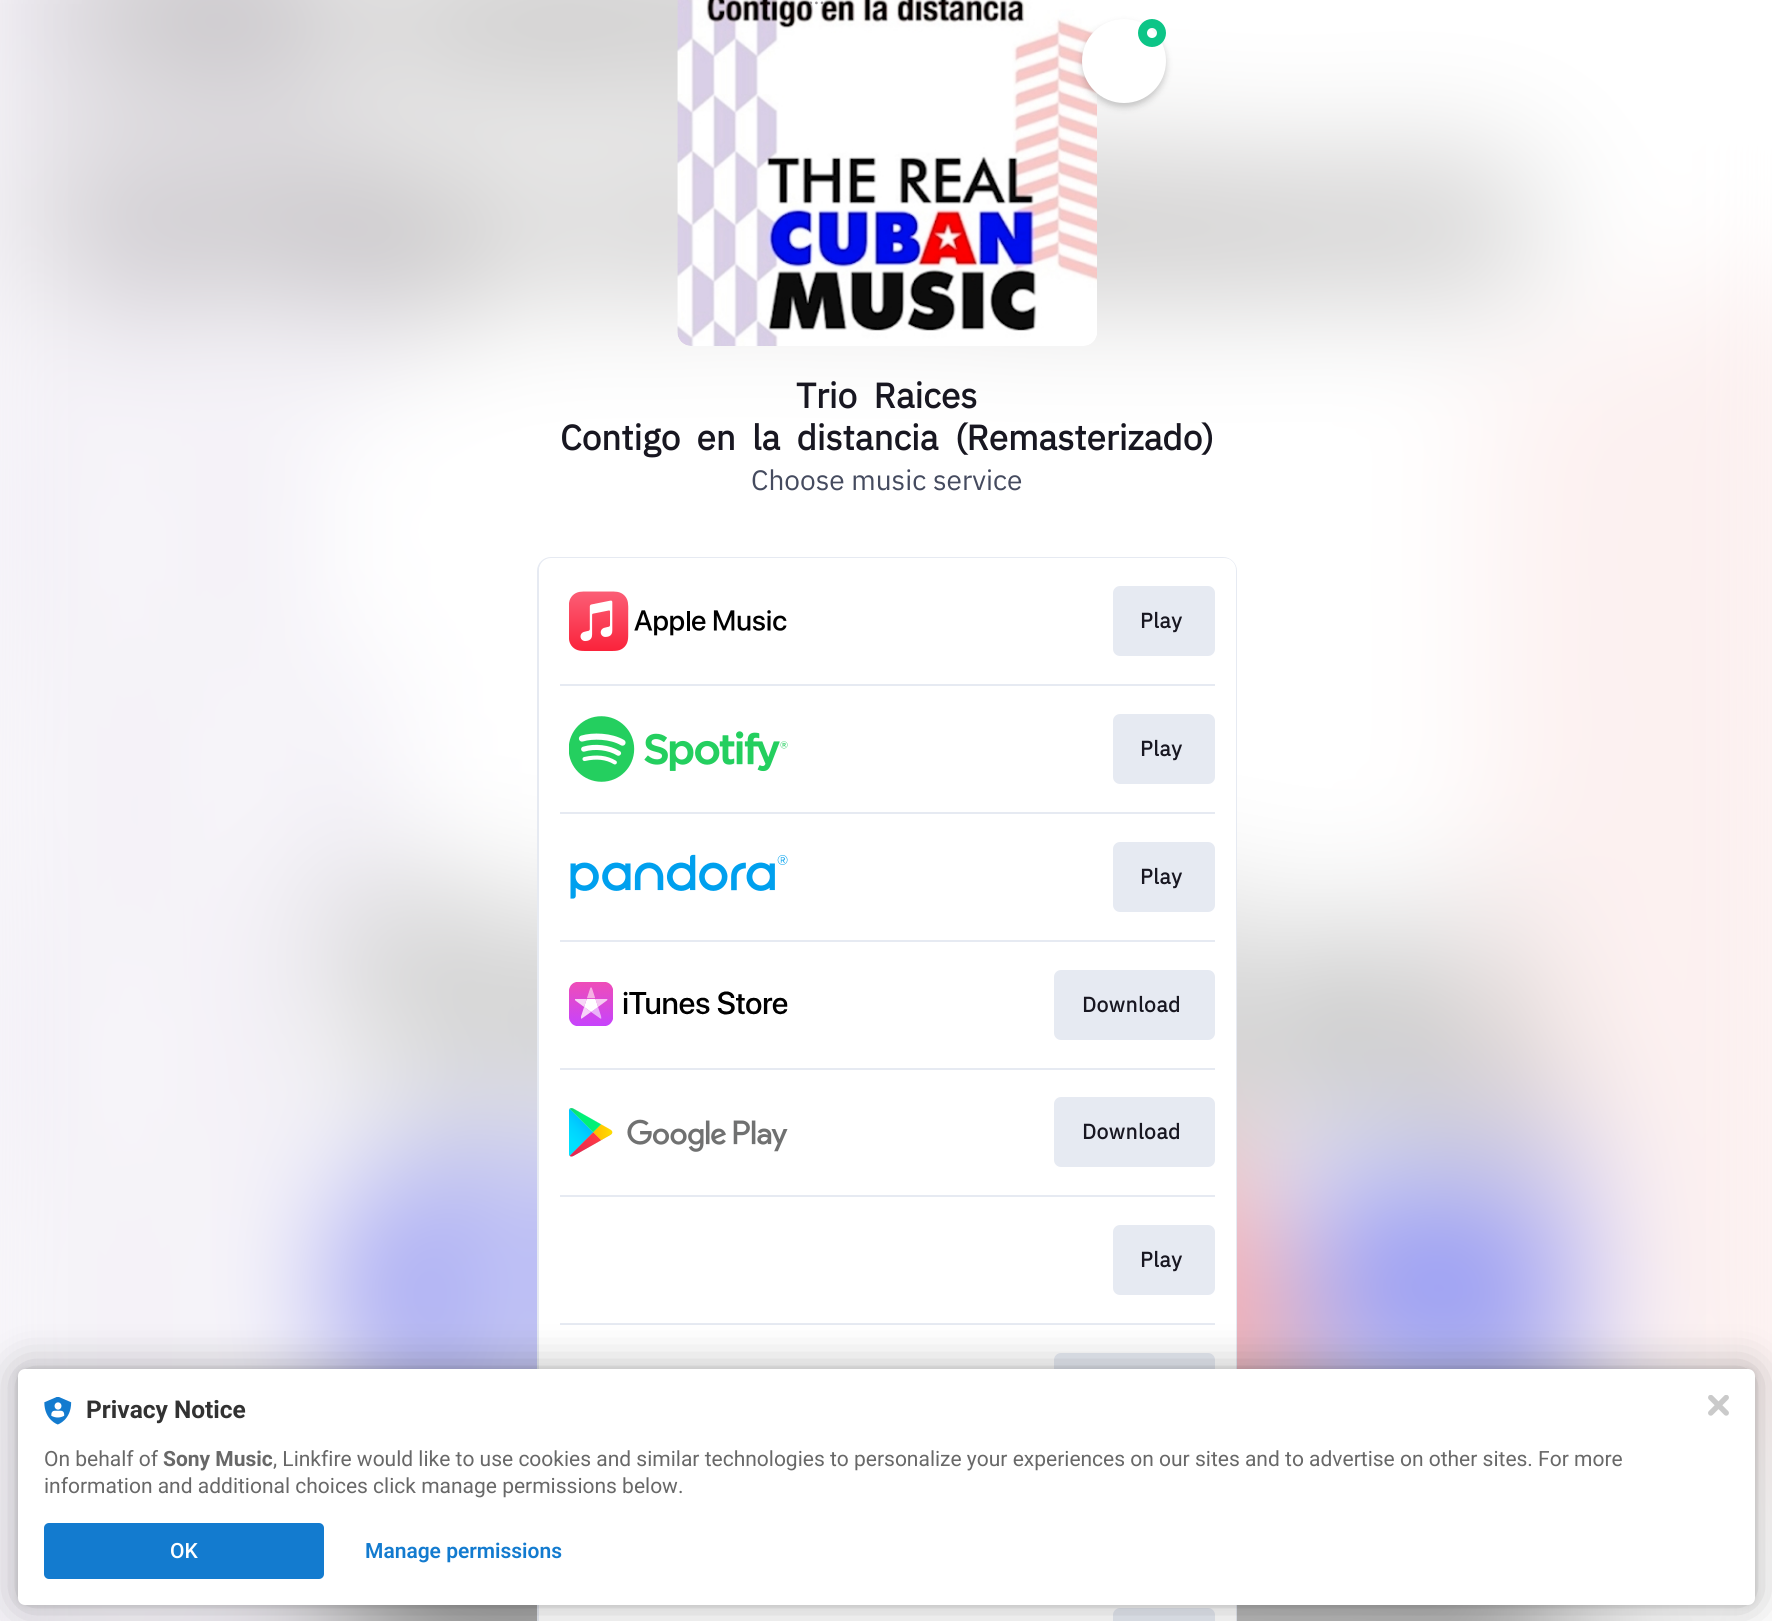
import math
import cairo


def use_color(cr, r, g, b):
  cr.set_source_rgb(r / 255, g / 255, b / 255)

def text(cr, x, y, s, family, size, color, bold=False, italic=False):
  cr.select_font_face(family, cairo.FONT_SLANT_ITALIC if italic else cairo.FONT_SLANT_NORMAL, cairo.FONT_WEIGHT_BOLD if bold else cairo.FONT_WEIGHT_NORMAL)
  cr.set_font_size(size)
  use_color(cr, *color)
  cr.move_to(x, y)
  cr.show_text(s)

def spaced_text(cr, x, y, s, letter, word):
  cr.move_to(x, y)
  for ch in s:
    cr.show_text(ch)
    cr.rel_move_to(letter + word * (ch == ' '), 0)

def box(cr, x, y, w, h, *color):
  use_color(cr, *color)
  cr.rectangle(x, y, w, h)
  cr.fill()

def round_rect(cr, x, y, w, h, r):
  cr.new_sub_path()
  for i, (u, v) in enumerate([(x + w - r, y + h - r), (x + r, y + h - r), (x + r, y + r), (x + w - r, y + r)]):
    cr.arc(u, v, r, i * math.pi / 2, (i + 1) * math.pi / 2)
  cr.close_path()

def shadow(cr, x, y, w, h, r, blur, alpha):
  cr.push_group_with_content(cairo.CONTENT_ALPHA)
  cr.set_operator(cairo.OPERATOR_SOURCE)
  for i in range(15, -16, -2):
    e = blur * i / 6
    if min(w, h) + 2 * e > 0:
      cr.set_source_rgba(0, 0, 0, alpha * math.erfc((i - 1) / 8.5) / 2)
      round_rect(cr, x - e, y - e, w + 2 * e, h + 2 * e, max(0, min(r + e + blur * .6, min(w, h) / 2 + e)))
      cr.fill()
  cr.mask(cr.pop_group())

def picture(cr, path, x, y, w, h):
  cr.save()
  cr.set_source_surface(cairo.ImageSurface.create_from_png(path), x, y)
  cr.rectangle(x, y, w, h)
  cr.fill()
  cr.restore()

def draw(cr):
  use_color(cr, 255, 255, 255)
  cr.paint()
  picture(cr, "img_01.png", 0, 0, 1772, 1621)
  picture(cr, "img_02.png", 677, 0, 420, 346)
  round_rect(cr, 538, 558, 698, 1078, 13)
  use_color(cr, 230, 234, 242)
  cr.stroke()
  use_color(cr, 255, 255, 255)
  round_rect(cr, 539, 558, 697, 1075, 12)
  cr.fill()
  picture(cr, "img_03.png", 569, 591, 218, 60)
  use_color(cr, 230, 234, 242)
  round_rect(cr, 1113, 586, 102, 70, 7)
  cr.fill()
  box(cr, 560, 684, 655, 2, 230, 234, 242)
  picture(cr, "img_04.png", 569, 716, 219, 66)
  round_rect(cr, 1113, 714, 102, 70, 7)
  cr.fill()
  box(cr, 560, 812, 655, 2, 230, 234, 242)
  picture(cr, "img_05.png", 570, 854, 218, 45)
  round_rect(cr, 1113, 842, 102, 70, 7)
  cr.fill()
  box(cr, 560, 940, 655, 2, 230, 234, 242)
  picture(cr, "img_06.png", 569, 982, 219, 44)
  round_rect(cr, 1054, 970, 161, 70, 7)
  cr.fill()
  box(cr, 560, 1068, 655, 2, 230, 234, 242)
  picture(cr, "img_07.png", 569, 1108, 219, 49)
  round_rect(cr, 1054, 1097, 161, 70, 7)
  cr.fill()
  box(cr, 560, 1195, 655, 2, 230, 234, 242)
  round_rect(cr, 1113, 1225, 102, 70, 7)
  cr.fill()
  box(cr, 560, 1323, 655, 2, 230, 234, 242)
  round_rect(cr, 1054, 1353, 161, 70, 7)
  cr.fill()
  round_rect(cr, 1113, 1608, 102, 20, 7)
  cr.fill()
  use_color(cr, 0, 0, 0)
  shadow(cr, 1082, 23, 84, 84, 42, 3.5, 0.2)
  use_color(cr, 255, 255, 255)
  cr.arc(1124, 61, 42, 0, 2 * math.pi)
  cr.fill()
  cr.arc(1152, 33, 9.5, 0, 2 * math.pi)
  use_color(cr, 13, 197, 135)
  cr.set_line_width(9)
  cr.stroke()
  use_color(cr, 0, 0, 0)
  shadow(cr, 18, 1369, 1737, 236, 7, 3.5, 0.12)
  shadow(cr, 18, 1369, 1737, 236, 7, 21, 0.3)
  use_color(cr, 255, 255, 255)
  round_rect(cr, 18, 1369, 1737, 236, 7)
  cr.fill()
  picture(cr, "img_08.png", 44, 1397, 28, 28)
  use_color(cr, 19, 123, 207)
  round_rect(cr, 44, 1523, 280, 56, 5)
  cr.fill()
  picture(cr, "img_09.png", 1708, 1395, 21, 21)
  text(cr, 808, 4, "…", "IBM Plex Sans", 21, (149, 144, 147))
  cr.select_font_face("IBM Plex Sans", cairo.FONT_SLANT_NORMAL, cairo.FONT_WEIGHT_BOLD)
  cr.set_font_size(35)
  use_color(cr, 24, 23, 33)
  spaced_text(cr, 796, 408, "Trio Raices", 0, 8)
  spaced_text(cr, 560, 450, "Contigo en la distancia (Remasterizado)", 0, 8)
  text(cr, 751, 490, "Choose music service", "IBM Plex Sans", 28, (69, 75, 95))
  cr.select_font_face("IBM Plex Sans", cairo.FONT_SLANT_NORMAL, cairo.FONT_WEIGHT_BOLD)
  cr.set_font_size(21)
  use_color(cr, 24, 23, 33)
  spaced_text(cr, 1140, 628, "Play", 0.5, 0)
  spaced_text(cr, 1140, 756, "Play", 0.5, 0)
  spaced_text(cr, 1140, 884, "Play", 0.5, 0)
  spaced_text(cr, 1082, 1012, "Download", 0.5, 0)
  spaced_text(cr, 1082, 1139, "Download", 0.5, 0)
  spaced_text(cr, 1140, 1267, "Play", 0.5, 0)
  text(cr, 86, 1418, "Privacy Notice", "Roboto", 24.5, (50, 50, 50), bold=True)
  text(cr, 44, 1466, "On behalf of", "Roboto", 21, (104, 104, 104))
  text(cr, 163, 1466, "Sony Music", "Roboto", 21, (104, 104, 104), bold=True)
  text(cr, 273, 1466, ", Linkfire would like to use cookies and similar technologies to personalize your experiences on our sites and to advertise on other sites. For more", "Roboto", 21, (104, 104, 104))
  text(cr, 44, 1493, "information and additional choices click manage permissions below.", "Roboto", 21, (104, 104, 104))
  text(cr, 170, 1558, "OK", "Roboto Medium", 21, (255, 255, 255))
  text(cr, 365, 1558, "Manage permissions", "Roboto SemiBold", 21, (19, 123, 207))


surface = cairo.ImageSurface(cairo.FORMAT_RGB24, 1772, 1621)
cr = cairo.Context(surface)
options = cairo.FontOptions()
options.set_hint_metrics(cairo.HINT_METRICS_OFF)
options.set_hint_style(cairo.HINT_STYLE_NONE)
cr.set_font_options(options)
cr.set_miter_limit(4)
draw(cr)
surface.write_to_png("out.png")
